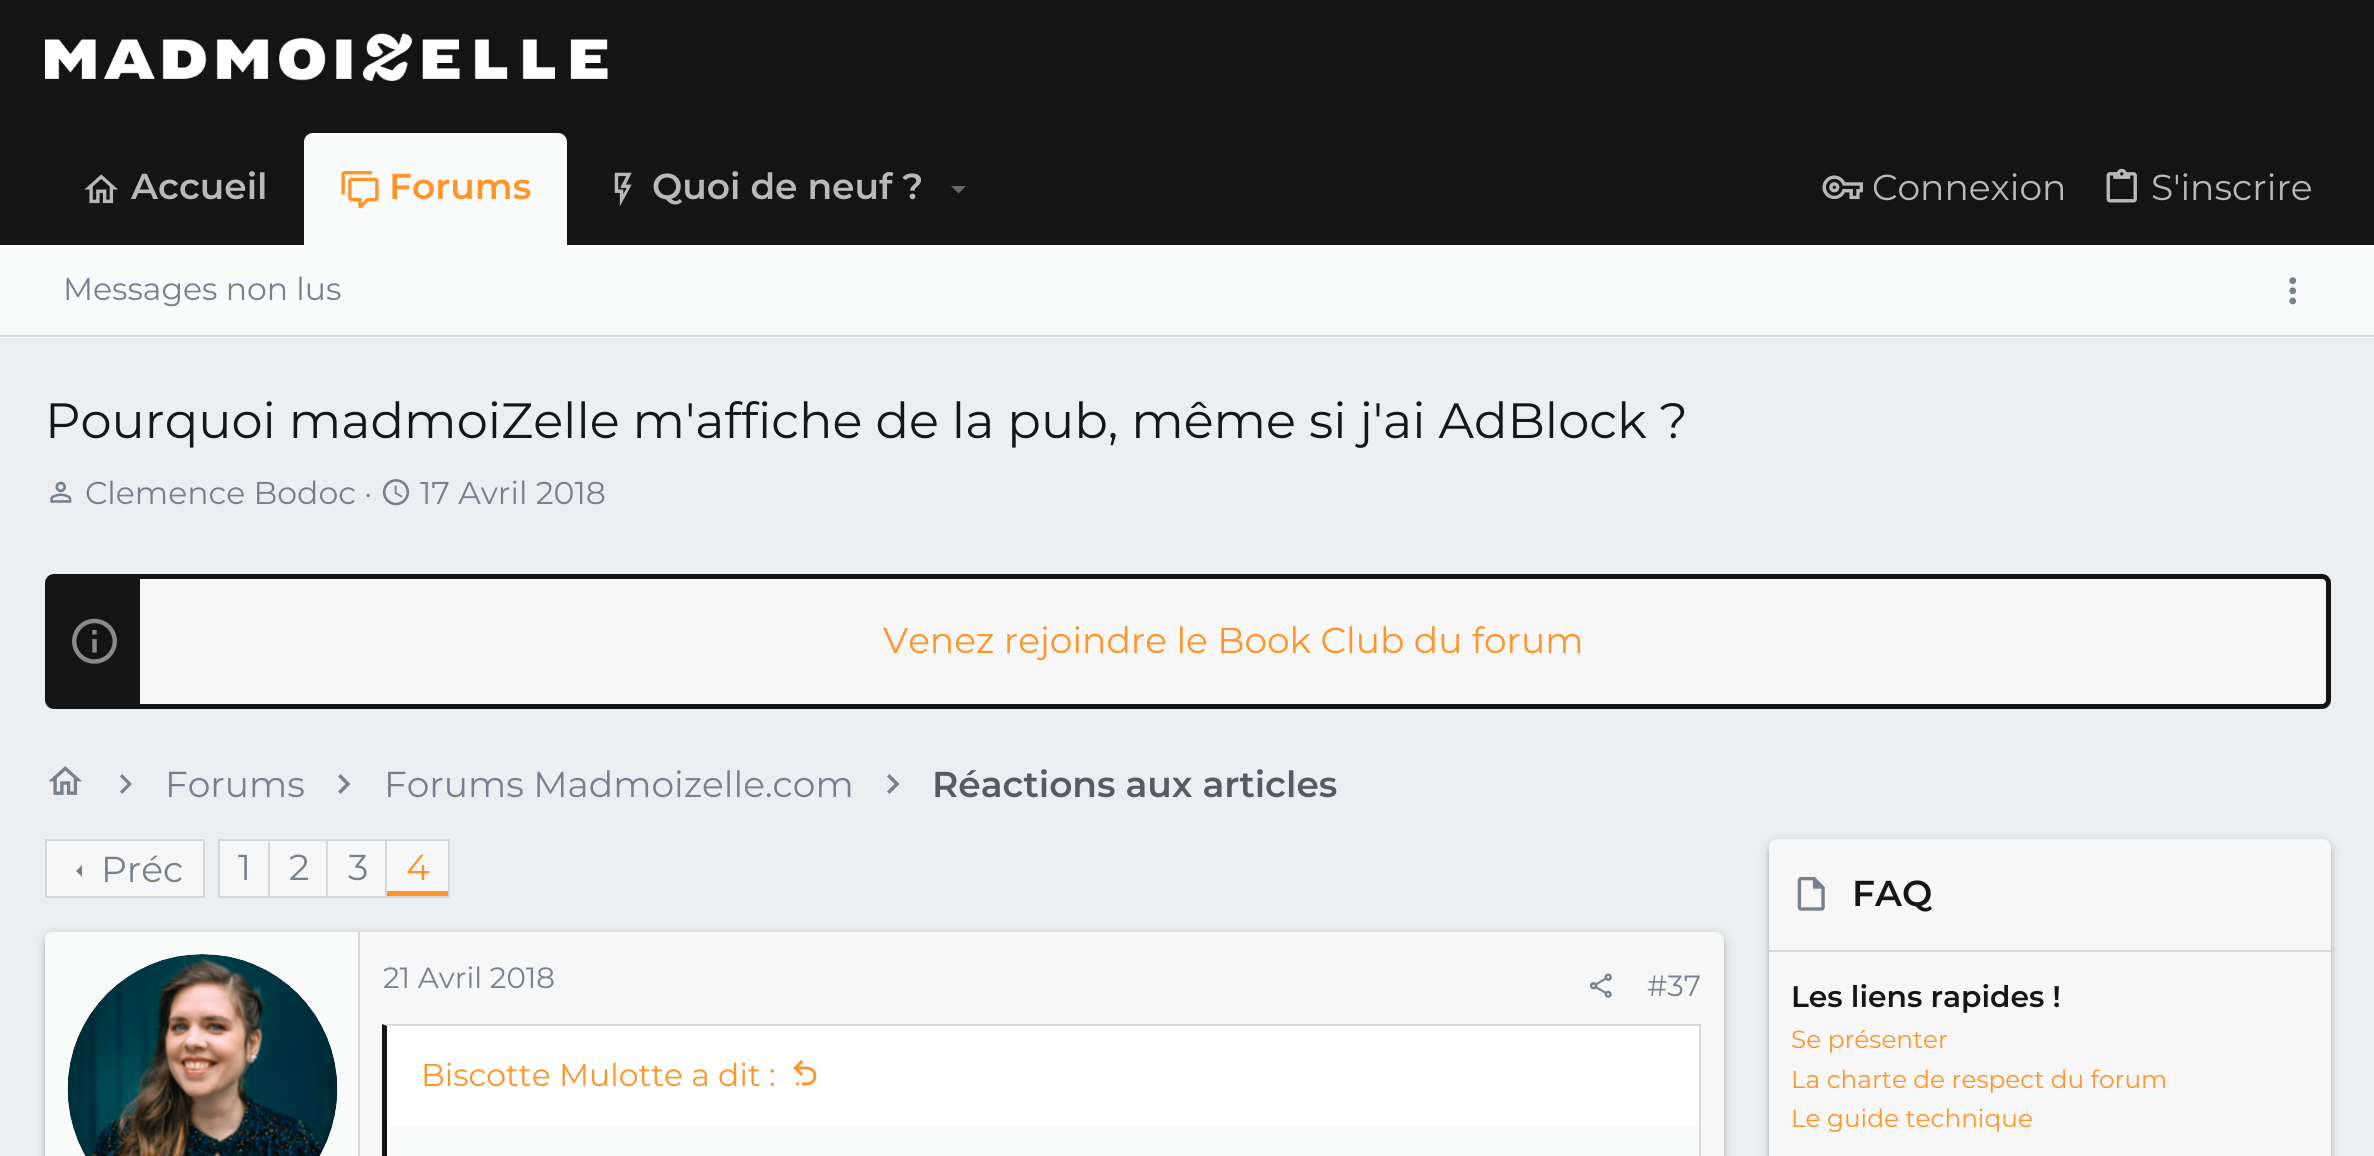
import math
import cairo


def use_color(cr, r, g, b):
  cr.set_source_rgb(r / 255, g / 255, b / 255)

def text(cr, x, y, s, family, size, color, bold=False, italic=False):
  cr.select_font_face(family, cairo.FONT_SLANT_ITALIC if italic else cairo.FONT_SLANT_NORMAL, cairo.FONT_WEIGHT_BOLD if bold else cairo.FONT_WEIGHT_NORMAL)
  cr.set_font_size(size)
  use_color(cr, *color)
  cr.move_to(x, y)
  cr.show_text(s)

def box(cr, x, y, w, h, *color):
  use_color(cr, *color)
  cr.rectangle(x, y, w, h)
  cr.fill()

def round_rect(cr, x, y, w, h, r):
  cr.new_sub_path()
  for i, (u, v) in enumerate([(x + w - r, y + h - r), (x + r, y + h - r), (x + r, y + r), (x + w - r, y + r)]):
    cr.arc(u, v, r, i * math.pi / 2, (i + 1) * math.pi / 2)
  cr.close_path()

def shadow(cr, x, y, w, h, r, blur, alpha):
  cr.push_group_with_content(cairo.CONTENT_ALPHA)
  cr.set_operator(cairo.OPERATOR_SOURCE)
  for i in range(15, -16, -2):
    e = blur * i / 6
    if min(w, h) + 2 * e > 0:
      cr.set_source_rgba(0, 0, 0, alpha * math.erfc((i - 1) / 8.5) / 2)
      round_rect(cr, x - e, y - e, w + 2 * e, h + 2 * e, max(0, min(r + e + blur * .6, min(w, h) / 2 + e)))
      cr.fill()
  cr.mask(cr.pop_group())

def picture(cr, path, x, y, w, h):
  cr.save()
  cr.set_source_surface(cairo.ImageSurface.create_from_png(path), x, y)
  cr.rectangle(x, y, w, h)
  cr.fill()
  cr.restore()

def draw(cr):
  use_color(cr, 236, 239, 241)
  cr.paint()
  box(cr, 0, 0, 2374, 245, 20, 20, 20)
  picture(cr, "img_01.png", 45, 33, 563, 48)
  picture(cr, "img_02.png", 84, 174, 34, 30)
  use_color(cr, 249, 250, 250)
  cr.new_path()
  cr.move_to(313, 133)
  cr.line_to(558, 133)
  cr.curve_to(563, 133, 567, 137, 567, 142)
  cr.line_to(567, 245)
  cr.line_to(304, 245)
  cr.line_to(304, 142)
  cr.curve_to(304, 137, 308, 133, 313, 133)
  cr.close_path()
  cr.fill()
  picture(cr, "img_03.png", 341, 171, 38, 38)
  picture(cr, "img_04.png", 614, 172, 18, 35)
  use_color(cr, 103, 103, 103)
  cr.new_path()
  cr.move_to(951, 186)
  cr.line_to(958.5, 193.5)
  cr.line_to(966, 186)
  cr.close_path()
  cr.fill()
  picture(cr, "img_05.png", 1822, 175, 41, 25)
  picture(cr, "img_06.png", 2106, 168, 31, 35)
  box(cr, 0, 245, 2374, 93, 249, 250, 250)
  box(cr, 0, 335, 2374, 2, 216, 216, 216)
  picture(cr, "img_07.png", 2289, 277, 8, 28)
  picture(cr, "img_08.png", 50, 481, 22, 22)
  picture(cr, "img_09.png", 382, 479, 28, 27)
  use_color(cr, 247, 247, 247)
  round_rect(cr, 47.5, 576.5, 2281, 130, 6.5)
  cr.fill_preserve()
  use_color(cr, 20, 20, 20)
  cr.set_line_width(5)
  cr.stroke()
  box(cr, 50, 579, 90, 125, 20, 20, 20)
  picture(cr, "img_10.png", 72, 618, 45, 46)
  picture(cr, "img_11.png", 48, 766, 34, 29)
  use_color(cr, 118, 129, 141)
  cr.new_path()
  cr.move_to(120, 791.5)
  cr.line_to(127.5, 784)
  cr.line_to(120, 776.5)
  cr.line_to(122, 774)
  cr.line_to(132, 784)
  cr.line_to(122, 794)
  cr.close_path()
  cr.fill()
  cr.new_path()
  cr.move_to(338, 791.5)
  cr.line_to(345.5, 784)
  cr.line_to(338, 776.5)
  cr.line_to(340.5, 774)
  cr.line_to(350.5, 784)
  cr.line_to(340.5, 794)
  cr.close_path()
  cr.fill()
  cr.new_path()
  cr.move_to(887, 791.5)
  cr.line_to(894.5, 784)
  cr.line_to(887, 776.5)
  cr.line_to(889.5, 774)
  cr.line_to(899.5, 784)
  cr.line_to(889.5, 794)
  cr.close_path()
  cr.fill()
  use_color(cr, 247, 247, 247)
  cr.rectangle(46, 840, 158, 57)
  cr.fill_preserve()
  use_color(cr, 216, 216, 216)
  cr.set_line_width(2)
  cr.stroke()
  use_color(cr, 118, 129, 141)
  cr.new_path()
  cr.move_to(82, 865)
  cr.line_to(76, 871)
  cr.line_to(82, 877)
  cr.close_path()
  cr.fill()
  box(cr, 220, 841, 48, 55, 247, 247, 247)
  box(cr, 218, 839, 167, 2, 216, 216, 216)
  box(cr, 218, 896, 167, 2, 216, 216, 216)
  box(cr, 218, 839, 2, 59, 216, 216, 216)
  box(cr, 270, 841, 56, 55, 247, 247, 247)
  box(cr, 268, 839, 2, 59, 216, 216, 216)
  box(cr, 328, 841, 57, 55, 247, 247, 247)
  box(cr, 326, 839, 2, 59, 216, 216, 216)
  box(cr, 387, 841, 61, 50, 247, 247, 247)
  box(cr, 387, 891, 61, 5, 255, 148, 41)
  cr.rectangle(386, 840, 63, 57)
  use_color(cr, 216, 216, 216)
  cr.stroke()
  use_color(cr, 0, 0, 0)
  shadow(cr, 45, 934, 1679, 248, 9, 5.5, 0.2)
  shadow(cr, 45, 936, 1679, 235, 9, 2, 0.14)
  use_color(cr, 247, 247, 247)
  round_rect(cr, 45, 932, 1679, 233, 9)
  cr.fill()
  use_color(cr, 249, 250, 250)
  cr.new_path()
  cr.move_to(52, 932)
  cr.line_to(360, 932)
  cr.line_to(360, 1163)
  cr.line_to(52, 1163)
  cr.curve_to(48, 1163, 45, 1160, 45, 1156)
  cr.line_to(45, 939)
  cr.curve_to(45, 935, 48, 932, 52, 932)
  cr.close_path()
  cr.fill()
  box(cr, 358, 932, 2, 224, 216, 216, 216)
  use_color(cr, 247, 247, 247)
  cr.arc(203, 1089, 135, 0, 2 * math.pi)
  cr.fill()
  picture(cr, "img_12.png", 67, 954, 271, 202)
  picture(cr, "img_13.png", 1589, 973, 23, 25)
  box(cr, 387, 1125, 1312, 31, 249, 250, 250)
  use_color(cr, 216, 216, 216)
  cr.new_path()
  cr.move_to(382, 1024)
  cr.line_to(1701, 1024)
  cr.line_to(1699, 1026)
  cr.line_to(387, 1026)
  cr.close_path()
  cr.fill()
  box(cr, 1699, 1024, 2, 132, 216, 216, 216)
  use_color(cr, 20, 20, 20)
  cr.new_path()
  cr.move_to(382, 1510)
  cr.line_to(382, 1024)
  cr.line_to(387, 1026)
  cr.line_to(387, 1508)
  cr.close_path()
  cr.fill()
  box(cr, 387, 1026, 1312, 99, 255, 255, 255)
  picture(cr, "img_14.png", 793, 1060, 24, 26)
  use_color(cr, 0, 0, 0)
  shadow(cr, 1769, 842, 562, 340, 9, 5.5, 0.2)
  shadow(cr, 1769, 844, 562, 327, 9, 2, 0.14)
  use_color(cr, 247, 247, 247)
  round_rect(cr, 1769, 839, 562, 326, 9)
  cr.fill()
  box(cr, 1769, 950, 562, 2, 216, 216, 216)
  picture(cr, "img_15.png", 1797, 876, 28, 35)
  text(cr, 131, 199, "Accueil", "Montserrat SemiBold", 36, (185, 185, 185))
  text(cr, 389, 199, "Forums", "Montserrat SemiBold", 36, (255, 148, 41))
  text(cr, 652, 199, "Quoi de neuf ?", "Montserrat SemiBold", 36, (185, 185, 185))
  text(cr, 1872, 200, "Connexion", "Montserrat", 36, (185, 185, 185))
  text(cr, 2151, 200, "S'inscrire", "Montserrat", 36, (185, 185, 185))
  text(cr, 63, 300, "Messages non lus", "Montserrat", 31.5, (118, 129, 141))
  text(cr, 45, 438, "Pourquoi madmoiZelle m'affiche de la pub, même si j'ai AdBlock ?", "Montserrat", 49.5, (20, 22, 24))
  text(cr, 85, 504, "Clemence Bodoc ·", "Montserrat", 31.5, (118, 129, 141))
  text(cr, 420, 504, "17 Avril 2018", "Montserrat", 31.5, (118, 129, 141))
  text(cr, 883, 653, "Venez rejoindre le Book Club du forum", "Montserrat", 36, (255, 148, 41))
  text(cr, 165, 797, "Forums", "Montserrat", 36, (118, 129, 141))
  text(cr, 384, 797, "Forums Madmoizelle.com", "Montserrat", 36, (118, 129, 141))
  text(cr, 932, 797, "Réactions aux articles", "Montserrat SemiBold", 36, (83, 91, 99))
  text(cr, 101, 882, "Préc", "Montserrat", 36, (118, 129, 141))
  text(cr, 238, 880, "1", "Montserrat", 36, (118, 129, 141))
  text(cr, 289, 880, "2", "Montserrat", 36, (118, 129, 141))
  text(cr, 348, 880, "3", "Montserrat", 36, (118, 129, 141))
  text(cr, 406, 880, "4", "Montserrat", 36, (255, 148, 41))
  text(cr, 383, 988, "21 Avril 2018", "Montserrat", 29.25, (118, 129, 141))
  text(cr, 1647, 996, "#37", "Montserrat", 29.25, (118, 129, 141))
  text(cr, 421, 1086, "Biscotte Mulotte a dit :", "Montserrat", 31.5, (255, 148, 41))
  text(cr, 1852, 906, "FAQ", "Montserrat SemiBold", 36, (20, 22, 24))
  text(cr, 1791, 1007, "Les liens rapides !", "Montserrat SemiBold", 29.75, (20, 22, 24))
  text(cr, 1791, 1048, "Se présenter", "Montserrat", 24.75, (255, 148, 41))
  text(cr, 1791, 1088, "La charte de respect du forum", "Montserrat", 24.75, (255, 148, 41))
  text(cr, 1791, 1127, "Le guide technique", "Montserrat", 24.75, (255, 148, 41))


surface = cairo.ImageSurface(cairo.FORMAT_RGB24, 2374, 1156)
cr = cairo.Context(surface)
options = cairo.FontOptions()
options.set_hint_metrics(cairo.HINT_METRICS_OFF)
options.set_hint_style(cairo.HINT_STYLE_NONE)
cr.set_font_options(options)
cr.set_miter_limit(4)
draw(cr)
surface.write_to_png("out.png")
